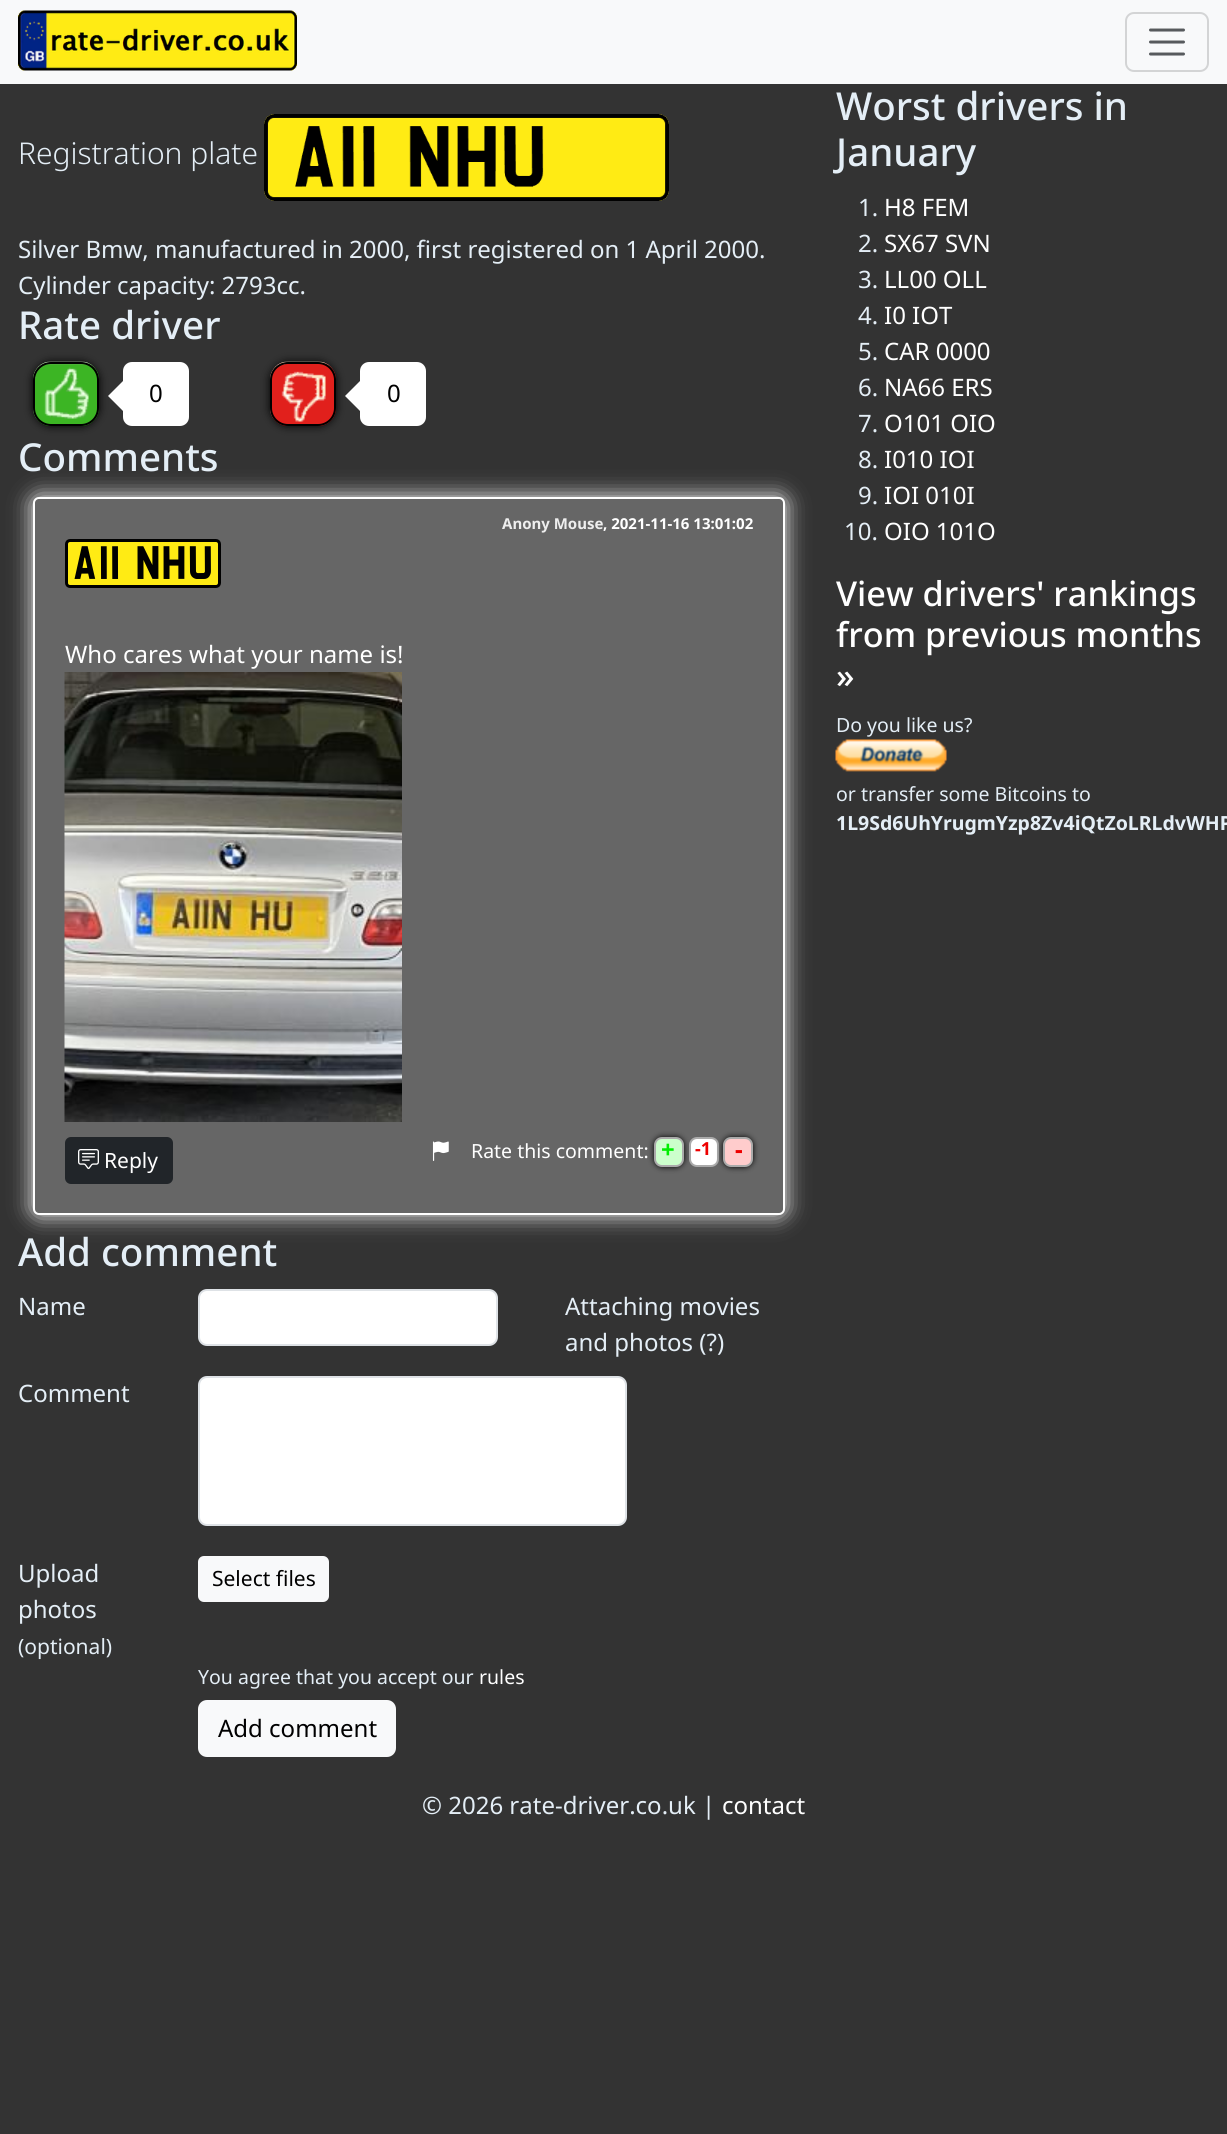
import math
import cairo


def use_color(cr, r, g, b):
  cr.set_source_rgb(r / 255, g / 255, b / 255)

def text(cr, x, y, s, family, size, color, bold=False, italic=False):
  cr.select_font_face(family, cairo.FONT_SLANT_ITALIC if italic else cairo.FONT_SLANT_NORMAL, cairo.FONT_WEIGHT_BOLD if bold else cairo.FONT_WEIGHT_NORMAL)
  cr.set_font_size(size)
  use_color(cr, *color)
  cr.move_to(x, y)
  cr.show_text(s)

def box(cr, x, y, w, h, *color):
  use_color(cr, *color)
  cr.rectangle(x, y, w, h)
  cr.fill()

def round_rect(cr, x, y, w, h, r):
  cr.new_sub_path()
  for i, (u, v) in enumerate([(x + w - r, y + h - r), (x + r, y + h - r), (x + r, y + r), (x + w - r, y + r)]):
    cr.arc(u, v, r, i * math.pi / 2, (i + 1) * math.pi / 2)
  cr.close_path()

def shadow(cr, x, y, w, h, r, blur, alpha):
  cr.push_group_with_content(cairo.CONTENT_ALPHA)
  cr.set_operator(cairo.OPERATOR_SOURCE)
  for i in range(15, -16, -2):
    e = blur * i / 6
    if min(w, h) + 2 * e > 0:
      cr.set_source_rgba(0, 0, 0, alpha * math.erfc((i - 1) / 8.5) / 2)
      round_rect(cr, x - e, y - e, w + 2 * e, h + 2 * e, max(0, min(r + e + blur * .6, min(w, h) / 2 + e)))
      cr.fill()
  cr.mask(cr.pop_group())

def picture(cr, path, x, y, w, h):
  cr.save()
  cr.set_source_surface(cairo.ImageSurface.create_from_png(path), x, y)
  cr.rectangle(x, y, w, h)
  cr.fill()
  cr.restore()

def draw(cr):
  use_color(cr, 51, 51, 51)
  cr.paint()
  box(cr, 0, 0, 1227, 84, 248, 249, 250)
  picture(cr, "img_01.png", 18, 10, 279, 61)
  round_rect(cr, 1126, 13, 82, 58, 8)
  use_color(cr, 211, 212, 213)
  cr.stroke()
  cr.new_path()
  cr.move_to(1150.5, 30)
  cr.line_to(1183.5, 30)
  cr.move_to(1150.5, 42)
  cr.line_to(1183.5, 42)
  cr.move_to(1150.5, 54)
  cr.line_to(1183.5, 54)
  use_color(cr, 87, 90, 93)
  cr.set_line_width(3)
  cr.set_line_cap(cairo.LINE_CAP_ROUND)
  cr.stroke()
  picture(cr, "img_02.png", 264, 114, 405, 87)
  use_color(cr, 0, 0, 0)
  shadow(cr, 33, 362, 66, 64, 18, 4.5, 1)
  picture(cr, "img_03.png", 33, 361, 66, 65)
  round_rect(cr, 34, 363, 64, 62, 17)
  use_color(cr, 0, 0, 0)
  cr.set_line_width(2)
  cr.set_line_cap(cairo.LINE_CAP_BUTT)
  cr.stroke()
  use_color(cr, 255, 255, 255)
  cr.new_path()
  cr.move_to(123, 381)
  cr.line_to(123, 411)
  cr.line_to(108, 396)
  cr.close_path()
  cr.fill()
  round_rect(cr, 123, 362, 66, 64, 9)
  cr.fill()
  use_color(cr, 0, 0, 0)
  shadow(cr, 270, 362, 66, 64, 18, 4.5, 1)
  picture(cr, "img_04.png", 270, 361, 66, 65)
  round_rect(cr, 271, 363, 64, 62, 17)
  use_color(cr, 0, 0, 0)
  cr.stroke()
  use_color(cr, 255, 255, 255)
  cr.new_path()
  cr.move_to(360, 381)
  cr.line_to(360, 411)
  cr.line_to(345, 396)
  cr.close_path()
  cr.fill()
  round_rect(cr, 360, 362, 66, 64, 9)
  cr.fill()
  use_color(cr, 255, 255, 255)
  shadow(cr, 33, 497, 752, 718, 6, 11, 1)
  use_color(cr, 102, 102, 102)
  round_rect(cr, 34, 498, 750, 716, 5)
  cr.fill_preserve()
  use_color(cr, 255, 255, 255)
  cr.stroke()
  use_color(cr, 255, 235, 20)
  round_rect(cr, 66.5, 540.5, 153, 46, 3.5)
  cr.fill_preserve()
  use_color(cr, 0, 0, 0)
  cr.set_line_width(3)
  cr.stroke()
  picture(cr, "img_05.png", 64, 672, 338, 450)
  use_color(cr, 33, 37, 41)
  round_rect(cr, 66, 1138, 106, 45, 5)
  cr.fill_preserve()
  cr.set_line_width(2)
  cr.stroke()
  picture(cr, "img_06.png", 78, 1149, 21, 21)
  picture(cr, "img_07.png", 432, 1141, 17, 20)
  use_color(cr, 0, 0, 0)
  shadow(cr, 654, 1137, 30, 30, 8, 3, 1)
  use_color(cr, 204, 255, 204)
  round_rect(cr, 655, 1138, 28, 28, 7)
  cr.fill_preserve()
  use_color(cr, 170, 170, 170)
  cr.stroke()
  use_color(cr, 255, 255, 255)
  round_rect(cr, 690, 1138, 28, 28, 7)
  cr.fill_preserve()
  use_color(cr, 170, 170, 170)
  cr.stroke()
  use_color(cr, 0, 0, 0)
  shadow(cr, 723, 1137, 30, 30, 8, 3, 1)
  use_color(cr, 255, 204, 204)
  round_rect(cr, 724, 1138, 28, 28, 7)
  cr.fill_preserve()
  use_color(cr, 170, 170, 170)
  cr.stroke()
  use_color(cr, 255, 255, 255)
  round_rect(cr, 199, 1290, 298, 55, 8)
  cr.fill_preserve()
  use_color(cr, 222, 226, 230)
  cr.stroke()
  use_color(cr, 255, 255, 255)
  round_rect(cr, 199, 1377, 427, 148, 8)
  cr.fill_preserve()
  use_color(cr, 222, 226, 230)
  cr.stroke()
  use_color(cr, 248, 249, 250)
  round_rect(cr, 199, 1557, 129, 44, 5)
  cr.fill_preserve()
  cr.stroke()
  round_rect(cr, 199, 1701, 196, 55, 8)
  cr.fill_preserve()
  cr.stroke()
  picture(cr, "img_08.png", 835, 739, 112, 33)
  text(cr, 18, 164, "Registration plate", "Noto Sans Light", 30, (228, 238, 246))
  text(cr, 18, 258, "Silver Bmw, manufactured in 2000, first registered on 1 April 2000.", "Noto Sans", 24, (228, 238, 246))
  text(cr, 18, 294, "Cylinder capacity: 2793cc.", "Noto Sans", 24, (228, 238, 246))
  text(cr, 18, 339, "Rate driver", "Noto Sans Medium", 38.5, (228, 238, 246))
  text(cr, 149, 402, "0", "Noto Sans", 24, (0, 0, 0))
  text(cr, 387, 402, "0", "Noto Sans", 24, (0, 0, 0))
  text(cr, 18, 471, "Comments", "Noto Sans Medium", 38.5, (228, 238, 246))
  text(cr, 502, 529, "Anony Mouse", "Noto Sans", 15, (238, 238, 238), bold=True)
  text(cr, 603, 529, ", 2021-11-16 13:01:02", "Noto Sans", 15, (255, 255, 255), bold=True)
  text(cr, 72, 579, "A11 NHU", "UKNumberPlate", 48, (0, 0, 0))
  text(cr, 65, 663, "Who cares what your name is!", "Noto Sans", 24, (255, 255, 255))
  text(cr, 104, 1168, "Reply", "Noto Sans", 21, (255, 255, 255))
  text(cr, 471, 1158, "Rate this comment:", "Noto Sans", 19.5, (255, 255, 255))
  text(cr, 661, 1158, "+", "Noto Sans", 24, (0, 238, 0), bold=True)
  text(cr, 695, 1155, "-1", "Noto Sans", 18, (238, 0, 0), bold=True)
  text(cr, 735, 1158, "-", "Noto Sans", 24, (238, 0, 0), bold=True)
  text(cr, 18, 1266, "Add comment", "Noto Sans Medium", 38.5, (228, 238, 246))
  text(cr, 18, 1315, "Name", "Noto Sans", 24, (228, 238, 246))
  text(cr, 18, 1402, "Comment", "Noto Sans", 24, (228, 238, 246))
  text(cr, 18, 1582, "Upload", "Noto Sans", 24, (228, 238, 246))
  text(cr, 18, 1618, "photos", "Noto Sans", 24, (228, 238, 246))
  text(cr, 18, 1654, "(optional)", "Noto Sans", 21, (228, 238, 246))
  text(cr, 212, 1586, "Select files", "Noto Sans", 21, (0, 0, 0))
  text(cr, 198, 1684, "You agree that you accept our", "Noto Sans", 19.5, (228, 238, 246))
  text(cr, 479, 1684, "rules", "Noto Sans", 19.5, (255, 255, 255))
  text(cr, 218, 1737, "Add comment", "Noto Sans", 24, (0, 0, 0))
  text(cr, 565, 1315, "Attaching movies", "Noto Sans", 24, (228, 238, 246))
  text(cr, 565, 1351, "and photos (?)", "Noto Sans", 24, (228, 238, 246))
  text(cr, 836, 120, "Worst drivers in", "Noto Sans Medium", 38.5, (228, 238, 246))
  text(cr, 836, 166, "January", "Noto Sans Medium", 38.5, (228, 238, 246))
  text(cr, 858, 216, "1.", "Noto Sans", 24, (228, 238, 246))
  text(cr, 884, 216, "H8 FEM", "Noto Sans", 24, (255, 255, 255))
  text(cr, 858, 252, "2.", "Noto Sans", 24, (228, 238, 246))
  text(cr, 884, 252, "SX67 SVN", "Noto Sans", 24, (255, 255, 255))
  text(cr, 858, 288, "3.", "Noto Sans", 24, (228, 238, 246))
  text(cr, 884, 288, "LL00 OLL", "Noto Sans", 24, (255, 255, 255))
  text(cr, 858, 324, "4.", "Noto Sans", 24, (228, 238, 246))
  text(cr, 884, 324, "I0 IOT", "Noto Sans", 24, (255, 255, 255))
  text(cr, 858, 360, "5.", "Noto Sans", 24, (228, 238, 246))
  text(cr, 884, 360, "CAR 0000", "Noto Sans", 24, (255, 255, 255))
  text(cr, 858, 396, "6.", "Noto Sans", 24, (228, 238, 246))
  text(cr, 884, 396, "NA66 ERS", "Noto Sans", 24, (255, 255, 255))
  text(cr, 858, 432, "7.", "Noto Sans", 24, (228, 238, 246))
  text(cr, 884, 432, "O101 OIO", "Noto Sans", 24, (255, 255, 255))
  text(cr, 858, 468, "8.", "Noto Sans", 24, (228, 238, 246))
  text(cr, 884, 468, "I010 IOI", "Noto Sans", 24, (255, 255, 255))
  text(cr, 858, 504, "9.", "Noto Sans", 24, (228, 238, 246))
  text(cr, 884, 504, "IOI 010I", "Noto Sans", 24, (255, 255, 255))
  text(cr, 844, 540, "10.", "Noto Sans", 24, (228, 238, 246))
  text(cr, 884, 540, "OIO 101O", "Noto Sans", 24, (255, 255, 255))
  text(cr, 836, 606, "View drivers' rankings", "Noto Sans Medium", 34.25, (255, 255, 255))
  text(cr, 836, 647, "from previous months", "Noto Sans Medium", 34.25, (255, 255, 255))
  text(cr, 836, 688, "»", "Noto Sans Medium", 34.25, (255, 255, 255))
  text(cr, 836, 732, "Do you like us?", "Noto Sans", 19.5, (228, 238, 246))
  text(cr, 836, 801, "or transfer some Bitcoins to", "Noto Sans", 19.5, (228, 238, 246))
  text(cr, 836, 830, "1L9Sd6UhYrugmYzp8Zv4iQtZoLRLdvWHP", "Noto Sans", 19.5, (228, 238, 246), bold=True)
  text(cr, 422, 1814, "© 2026 rate-driver.co.uk |", "Noto Sans", 24, (228, 238, 246))
  text(cr, 722, 1814, "contact", "Noto Sans", 24, (255, 255, 255))


surface = cairo.ImageSurface(cairo.FORMAT_RGB24, 1227, 2134)
cr = cairo.Context(surface)
options = cairo.FontOptions()
options.set_hint_metrics(cairo.HINT_METRICS_OFF)
options.set_hint_style(cairo.HINT_STYLE_NONE)
cr.set_font_options(options)
cr.set_miter_limit(4)
draw(cr)
surface.write_to_png("out.png")
